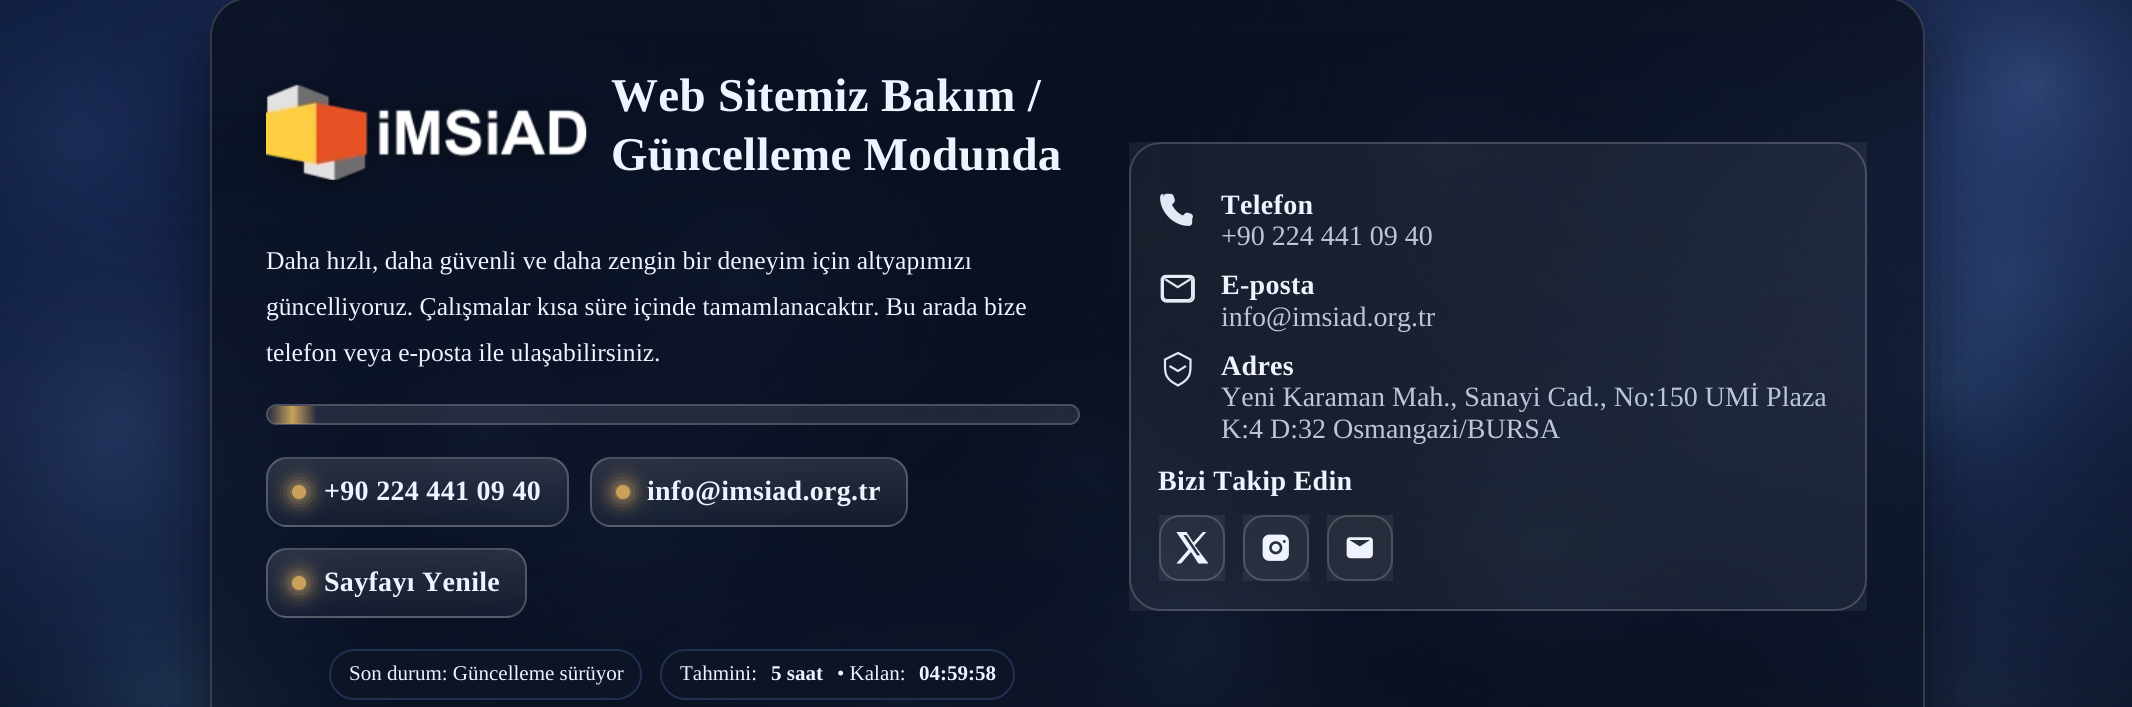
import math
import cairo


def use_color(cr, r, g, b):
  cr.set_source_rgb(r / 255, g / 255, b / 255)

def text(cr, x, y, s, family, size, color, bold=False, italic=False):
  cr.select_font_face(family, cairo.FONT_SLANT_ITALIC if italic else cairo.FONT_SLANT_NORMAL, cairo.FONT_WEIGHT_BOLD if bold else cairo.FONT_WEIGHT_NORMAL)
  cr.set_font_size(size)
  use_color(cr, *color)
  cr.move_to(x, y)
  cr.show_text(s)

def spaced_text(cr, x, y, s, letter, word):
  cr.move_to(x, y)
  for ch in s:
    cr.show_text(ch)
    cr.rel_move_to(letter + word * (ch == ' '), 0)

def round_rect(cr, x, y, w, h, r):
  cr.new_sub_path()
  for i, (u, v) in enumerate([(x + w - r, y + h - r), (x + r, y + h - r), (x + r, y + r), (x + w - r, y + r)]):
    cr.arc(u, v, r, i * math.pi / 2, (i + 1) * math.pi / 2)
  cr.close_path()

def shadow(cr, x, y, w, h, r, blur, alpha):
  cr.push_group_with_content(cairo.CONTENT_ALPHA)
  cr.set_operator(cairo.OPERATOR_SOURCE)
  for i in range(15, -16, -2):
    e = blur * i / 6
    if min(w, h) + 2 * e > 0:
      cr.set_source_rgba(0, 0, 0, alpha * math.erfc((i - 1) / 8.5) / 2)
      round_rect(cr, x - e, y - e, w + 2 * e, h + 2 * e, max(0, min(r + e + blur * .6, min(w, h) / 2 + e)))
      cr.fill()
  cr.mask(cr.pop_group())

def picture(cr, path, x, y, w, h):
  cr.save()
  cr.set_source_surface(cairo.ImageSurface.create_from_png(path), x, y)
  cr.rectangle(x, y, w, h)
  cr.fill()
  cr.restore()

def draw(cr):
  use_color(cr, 255, 255, 255)
  cr.paint()
  gradient = cairo.LinearGradient(1067, -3.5, 1067, 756)
  gradient.add_color_stop_rgba(0, 0.027, 0.063, 0.122, 1)
  gradient.add_color_stop_rgba(1, 0.043, 0.078, 0.149, 1)
  cr.set_source(gradient)
  cr.rectangle(0, 0, 2132, 707)
  cr.fill()
  gradient = cairo.RadialGradient(0, 0, 0, 0, 0, 1)
  gradient.set_matrix(cairo.Matrix(1 / 1575, 0, 0, 1 / 1050, -1 * 1920 / 1575, -1 * 148 / 1050))
  gradient.add_color_stop_rgba(0, 0.114, 0.184, 0.341, 1)
  gradient.add_color_stop_rgba(0.6, 0.114, 0.184, 0.341, 0)
  cr.set_source(gradient)
  cr.rectangle(1018, 0, 1114, 707)
  cr.fill()
  gradient = cairo.RadialGradient(0, 0, 0, 0, 0, 1)
  gradient.set_matrix(cairo.Matrix(1 / 2100, 0, 0, 1 / 1400, -1 * 213 / 2100, -1 * 72 / 1400))
  gradient.add_color_stop_rgba(0, 0.075, 0.137, 0.286, 1)
  gradient.add_color_stop_rgba(0.6, 0.075, 0.137, 0.286, 0)
  cr.set_source(gradient)
  cr.rectangle(0, 0, 1348, 707)
  cr.fill()
  picture(cr, "img_01.png", 0, 0, 2132, 707)
  cr.save()
  cr.set_fill_rule(cairo.FILL_RULE_EVEN_ODD)
  cr.new_path()
  cr.move_to(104, 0)
  cr.line_to(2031, 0)
  cr.line_to(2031, 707)
  cr.line_to(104, 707)
  cr.close_path()
  cr.move_to(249, -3)
  cr.line_to(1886, -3)
  cr.curve_to(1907.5, -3, 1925, 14.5, 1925, 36)
  cr.line_to(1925, 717)
  cr.curve_to(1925, 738.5, 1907.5, 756, 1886, 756)
  cr.line_to(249, 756)
  cr.curve_to(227.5, 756, 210, 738.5, 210, 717)
  cr.line_to(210, 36)
  cr.curve_to(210, 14.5, 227.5, -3, 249, -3)
  cr.close_path()
  cr.clip()
  use_color(cr, 0, 0, 0)
  shadow(cr, 210, 21, 1715, 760, 39, 35, 0.5)
  cr.restore()
  cr.save()
  round_rect(cr, 210, -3, 1715, 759, 39)
  cr.clip()
  gradient = cairo.LinearGradient(1068, -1.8, 1068, 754)
  gradient.add_color_stop_rgba(0, 0.031, 0.047, 0.094, 0.72)
  gradient.add_color_stop_rgba(1, 0.031, 0.047, 0.094, 0.48)
  cr.set_source(gradient)
  cr.rectangle(210, 0, 1715, 707)
  cr.fill()
  cr.restore()
  round_rect(cr, 211, -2, 1713, 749, 38)
  cr.set_source_rgba(1, 1, 1, 0.16)
  cr.stroke()
  picture(cr, "img_02.png", 256, 81, 331, 110)
  cr.set_source_rgba(1, 1, 1, 0.1)
  round_rect(cr, 266, 404, 814, 21, 10.5)
  cr.fill()
  round_rect(cr, 267, 405, 812, 19, 9.5)
  cr.set_source_rgba(1, 1, 1, 0.18)
  cr.stroke()
  gradient = cairo.LinearGradient(268, 415, 317, 415)
  gradient.add_color_stop_rgba(0, 0.792, 0.631, 0.357, 0)
  gradient.add_color_stop_rgba(0.5, 0.792, 0.631, 0.357, 1)
  gradient.add_color_stop_rgba(1, 0.792, 0.631, 0.357, 0)
  cr.set_source(gradient)
  cr.new_path()
  cr.move_to(277, 406)
  cr.line_to(317, 406)
  cr.line_to(317, 424)
  cr.line_to(277, 424)
  cr.curve_to(272, 424, 268, 420, 268, 415)
  cr.curve_to(268, 410, 272, 406, 277, 406)
  cr.close_path()
  cr.fill()
  gradient = cairo.LinearGradient(417, 392, 417, 459)
  gradient.add_color_stop_rgba(0, 1, 1, 1, 0.12)
  gradient.add_color_stop_rgba(1, 1, 1, 1, 0.04)
  cr.set_source(gradient)
  cr.rectangle(279, 457, 277, 2)
  cr.fill()
  cr.save()
  round_rect(cr, 266, 457, 303, 70, 21)
  cr.clip()
  gradient = cairo.LinearGradient(417, 459, 417, 525)
  gradient.add_color_stop_rgba(0, 1, 1, 1, 0.12)
  gradient.add_color_stop_rgba(1, 1, 1, 1, 0.04)
  cr.set_source(gradient)
  cr.rectangle(266, 459, 303, 66)
  cr.fill()
  gradient = cairo.LinearGradient(417, 525, 417, 592)
  gradient.add_color_stop_rgba(0, 1, 1, 1, 0.12)
  gradient.add_color_stop_rgba(1, 1, 1, 1, 0.04)
  cr.set_source(gradient)
  cr.rectangle(278, 525, 279, 2)
  cr.fill()
  cr.restore()
  round_rect(cr, 267, 458, 301, 68, 20)
  cr.set_source_rgba(1, 1, 1, 0.22)
  cr.stroke()
  use_color(cr, 202, 161, 91)
  shadow(cr, 292, 485, 14, 14, 7, 10.5, 1)
  use_color(cr, 202, 161, 91)
  cr.arc(299, 492, 7, 0, 2 * math.pi)
  cr.fill()
  gradient = cairo.LinearGradient(749, 392, 749, 459)
  gradient.add_color_stop_rgba(0, 1, 1, 1, 0.12)
  gradient.add_color_stop_rgba(1, 1, 1, 1, 0.04)
  cr.set_source(gradient)
  cr.rectangle(603, 457, 292, 2)
  cr.fill()
  cr.save()
  round_rect(cr, 590, 457, 318, 70, 21)
  cr.clip()
  gradient = cairo.LinearGradient(749, 459, 749, 525)
  gradient.add_color_stop_rgba(0, 1, 1, 1, 0.12)
  gradient.add_color_stop_rgba(1, 1, 1, 1, 0.04)
  cr.set_source(gradient)
  cr.rectangle(590, 459, 318, 66)
  cr.fill()
  gradient = cairo.LinearGradient(749, 525, 749, 592)
  gradient.add_color_stop_rgba(0, 1, 1, 1, 0.12)
  gradient.add_color_stop_rgba(1, 1, 1, 1, 0.04)
  cr.set_source(gradient)
  cr.rectangle(602, 525, 294, 2)
  cr.fill()
  cr.restore()
  round_rect(cr, 591, 458, 316, 68, 20)
  cr.set_source_rgba(1, 1, 1, 0.22)
  cr.stroke()
  use_color(cr, 202, 161, 91)
  shadow(cr, 616, 485, 14, 14, 7, 10.5, 1)
  use_color(cr, 202, 161, 91)
  cr.arc(623, 492, 7, 0, 2 * math.pi)
  cr.fill()
  gradient = cairo.LinearGradient(396, 483, 396, 550)
  gradient.add_color_stop_rgba(0, 1, 1, 1, 0.12)
  gradient.add_color_stop_rgba(1, 1, 1, 1, 0.04)
  cr.set_source(gradient)
  cr.rectangle(279, 548, 235, 2)
  cr.fill()
  cr.save()
  round_rect(cr, 266, 548, 261, 70, 21)
  cr.clip()
  gradient = cairo.LinearGradient(396, 550, 396, 616)
  gradient.add_color_stop_rgba(0, 1, 1, 1, 0.12)
  gradient.add_color_stop_rgba(1, 1, 1, 1, 0.04)
  cr.set_source(gradient)
  cr.rectangle(266, 550, 261, 66)
  cr.fill()
  gradient = cairo.LinearGradient(396, 616, 396, 683)
  gradient.add_color_stop_rgba(0, 1, 1, 1, 0.12)
  gradient.add_color_stop_rgba(1, 1, 1, 1, 0.04)
  cr.set_source(gradient)
  cr.rectangle(278, 616, 237, 2)
  cr.fill()
  cr.restore()
  round_rect(cr, 267, 549, 259, 68, 20)
  cr.set_source_rgba(1, 1, 1, 0.22)
  cr.stroke()
  use_color(cr, 202, 161, 91)
  shadow(cr, 292, 576, 14, 14, 7, 10.5, 1)
  use_color(cr, 202, 161, 91)
  cr.arc(299, 583, 7, 0, 2 * math.pi)
  cr.fill()
  use_color(cr, 12, 20, 38)
  round_rect(cr, 330, 650, 311, 49, 24.5)
  cr.fill_preserve()
  use_color(cr, 32, 48, 82)
  cr.stroke()
  use_color(cr, 12, 20, 38)
  round_rect(cr, 661, 650, 353, 49, 24.5)
  cr.fill_preserve()
  use_color(cr, 32, 48, 82)
  cr.stroke()
  cr.set_source_rgba(1, 1, 1, 0.06)
  cr.rectangle(1129, 142, 738, 469)
  cr.fill()
  round_rect(cr, 1130, 143, 736, 467, 31)
  cr.set_source_rgba(1, 1, 1, 0.18)
  cr.stroke()
  picture(cr, "img_03.png", 1160, 193, 33, 33)
  picture(cr, "img_04.png", 1160, 274, 35, 29)
  cr.new_path()
  cr.move_to(1178, 353)
  cr.line_to(1190.5, 359.5)
  cr.curve_to(1190.5, 373.5, 1191.5, 378, 1178, 385.5)
  cr.curve_to(1164, 378, 1165, 373.5, 1165, 359.5)
  cr.close_path()
  cr.move_to(1169.5, 366)
  cr.line_to(1178, 371)
  cr.line_to(1186, 366)
  use_color(cr, 227, 232, 245)
  cr.set_line_width(2.2)
  cr.stroke()
  cr.set_source_rgba(1, 1, 1, 0.06)
  cr.rectangle(1159, 515, 66, 66)
  cr.fill()
  round_rect(cr, 1160, 516, 64, 64, 20)
  cr.set_source_rgba(1, 1, 1, 0.18)
  cr.set_line_width(2)
  cr.stroke()
  picture(cr, "img_05.png", 1176, 532, 32, 32)
  cr.set_source_rgba(1, 1, 1, 0.06)
  cr.rectangle(1243, 515, 66, 66)
  cr.fill()
  round_rect(cr, 1244, 516, 64, 64, 20)
  cr.set_source_rgba(1, 1, 1, 0.18)
  cr.stroke()
  picture(cr, "img_06.png", 1262, 534, 27, 27)
  cr.set_source_rgba(1, 1, 1, 0.06)
  cr.rectangle(1327, 515, 66, 66)
  cr.fill()
  round_rect(cr, 1328, 516, 64, 64, 20)
  cr.set_source_rgba(1, 1, 1, 0.18)
  cr.stroke()
  picture(cr, "img_07.png", 1346, 537, 27, 22)
  cr.select_font_face("Liberation Serif", cairo.FONT_SLANT_NORMAL, cairo.FONT_WEIGHT_BOLD)
  cr.set_font_size(47)
  use_color(cr, 238, 243, 255)
  spaced_text(cr, 611, 111, "Web Sitemiz Bakım /", 0.3, 0)
  spaced_text(cr, 611, 170, "Güncelleme Modunda", 0.3, 0)
  text(cr, 266, 269, "Daha hızlı, daha güvenli ve daha zengin bir deneyim için altyapımızı", "Liberation Serif", 25.6, (238, 243, 255))
  text(cr, 266, 315, "güncelliyoruz. Çalışmalar kısa süre içinde tamamlanacaktır. Bu arada bize", "Liberation Serif", 25.6, (238, 243, 255))
  text(cr, 266, 361, "telefon veya e-posta ile ulaşabilirsiniz.", "Liberation Serif", 25.6, (238, 243, 255))
  cr.select_font_face("Liberation Serif", cairo.FONT_SLANT_NORMAL, cairo.FONT_WEIGHT_BOLD)
  cr.set_font_size(28)
  spaced_text(cr, 324, 500, "+90 224 441 09 40", 0.3, 0)
  spaced_text(cr, 647, 500, "info@imsiad.org.tr", 0.3, 0)
  spaced_text(cr, 324, 591, "Sayfayı Yenile", 0.3, 0)
  text(cr, 349, 680, "Son durum: Güncelleme sürüyor", "Liberation Serif", 21, (238, 243, 255))
  text(cr, 680, 680, "Tahmini:", "Liberation Serif", 21, (238, 243, 255))
  text(cr, 771, 680, "5 saat", "Liberation Serif", 21, (238, 243, 255), bold=True)
  text(cr, 837, 680, "• Kalan:", "Liberation Serif", 21, (238, 243, 255))
  text(cr, 919, 680, "04:59:58", "Liberation Serif", 21, (238, 243, 255), bold=True)
  cr.set_font_size(28)
  spaced_text(cr, 1221, 214, "Telefon", 0.3, 0)
  text(cr, 1221, 245, "+90 224 441 09 40", "Liberation Serif", 28, (187, 199, 216))
  cr.select_font_face("Liberation Serif", cairo.FONT_SLANT_NORMAL, cairo.FONT_WEIGHT_BOLD)
  use_color(cr, 238, 243, 255)
  spaced_text(cr, 1221, 294, "E-posta", 0.3, 0)
  text(cr, 1221, 326, "info@imsiad.org.tr", "Liberation Serif", 28, (187, 199, 216))
  cr.select_font_face("Liberation Serif", cairo.FONT_SLANT_NORMAL, cairo.FONT_WEIGHT_BOLD)
  use_color(cr, 238, 243, 255)
  spaced_text(cr, 1221, 375, "Adres", 0.3, 0)
  text(cr, 1221, 406, "Yeni Karaman Mah., Sanayi Cad., No:150 UMİ Plaza", "Liberation Serif", 28, (187, 199, 216))
  text(cr, 1221, 438, "K:4 D:32 Osmangazi/BURSA", "Liberation Serif", 28, (187, 199, 216))
  cr.select_font_face("Liberation Serif", cairo.FONT_SLANT_NORMAL, cairo.FONT_WEIGHT_BOLD)
  use_color(cr, 238, 243, 255)
  spaced_text(cr, 1158, 490, "Bizi Takip Edin", 0.3, 0)


surface = cairo.ImageSurface(cairo.FORMAT_RGB24, 2132, 707)
cr = cairo.Context(surface)
options = cairo.FontOptions()
options.set_hint_metrics(cairo.HINT_METRICS_OFF)
options.set_hint_style(cairo.HINT_STYLE_NONE)
cr.set_font_options(options)
cr.set_miter_limit(4)
draw(cr)
surface.write_to_png("out.png")
